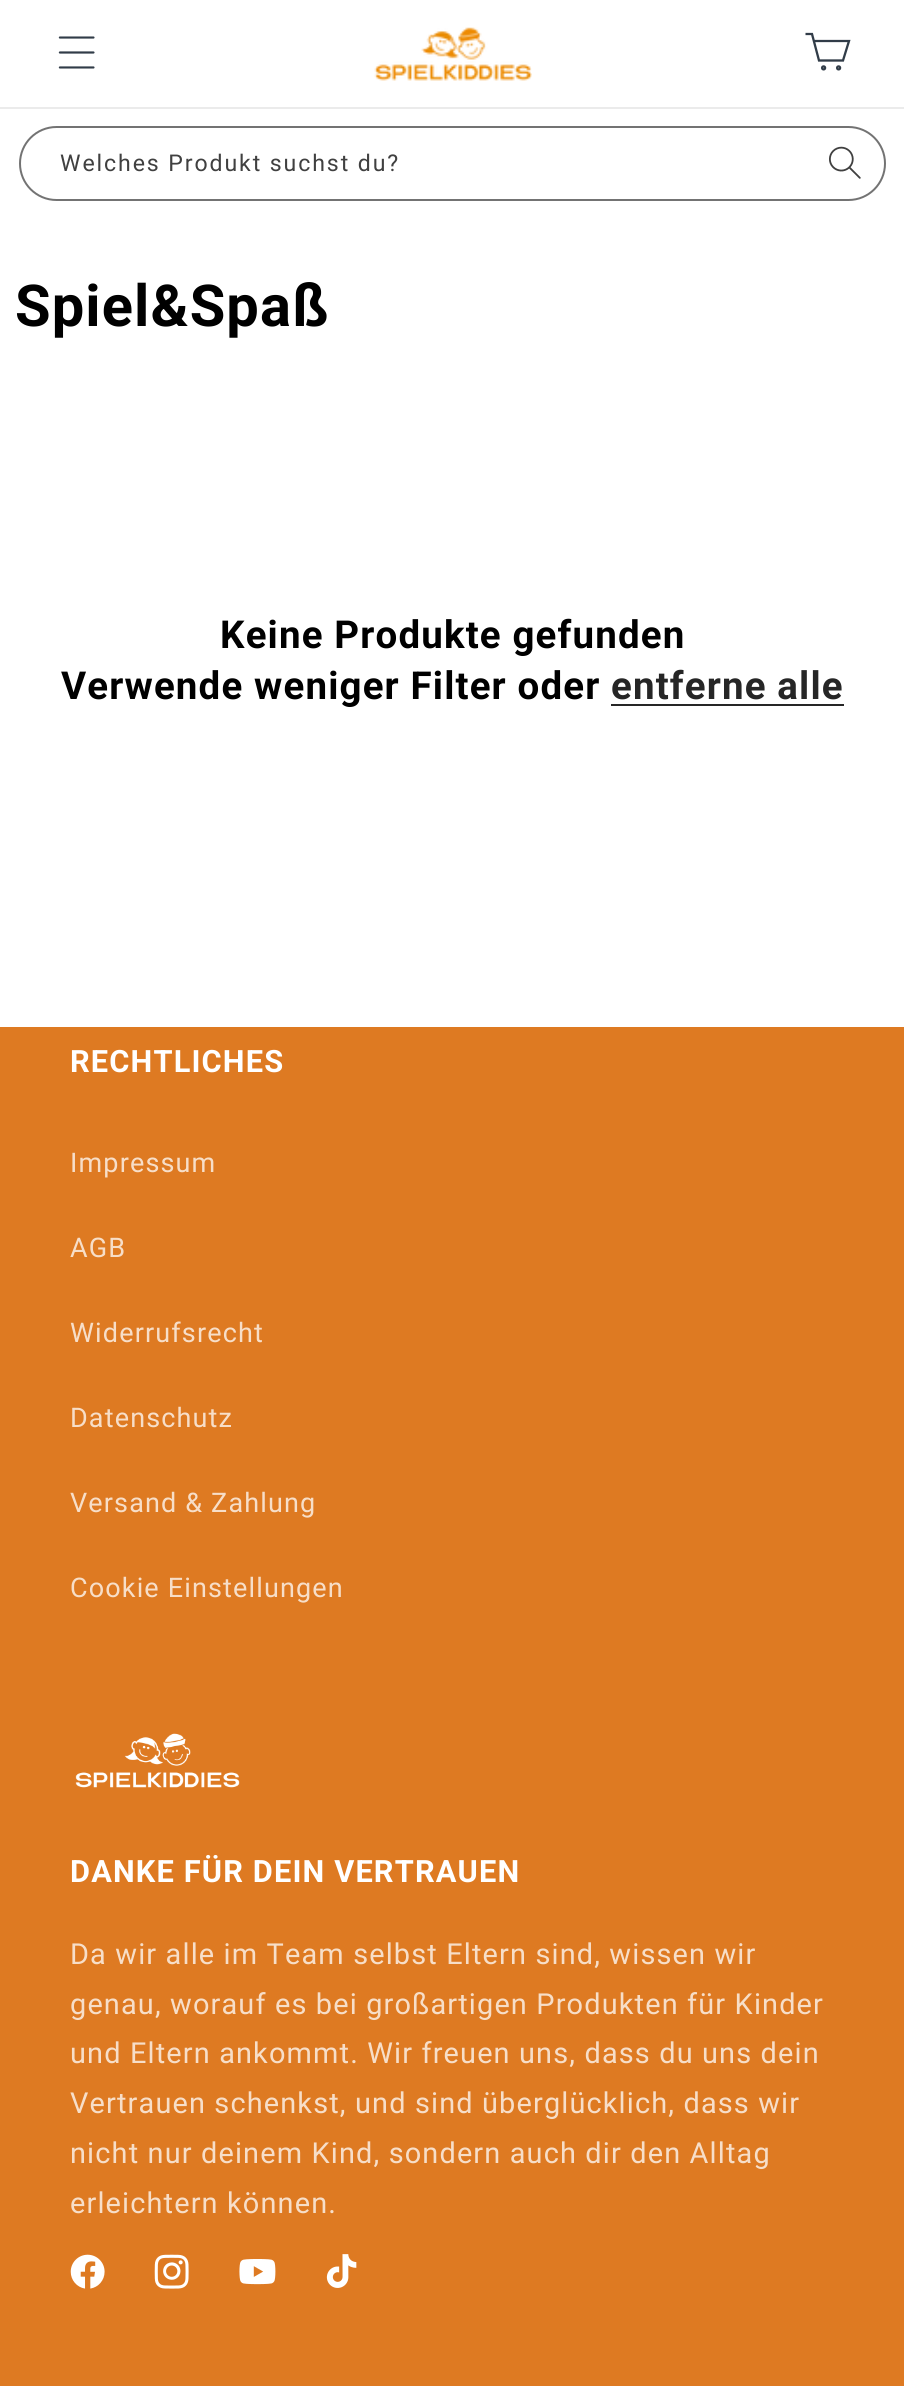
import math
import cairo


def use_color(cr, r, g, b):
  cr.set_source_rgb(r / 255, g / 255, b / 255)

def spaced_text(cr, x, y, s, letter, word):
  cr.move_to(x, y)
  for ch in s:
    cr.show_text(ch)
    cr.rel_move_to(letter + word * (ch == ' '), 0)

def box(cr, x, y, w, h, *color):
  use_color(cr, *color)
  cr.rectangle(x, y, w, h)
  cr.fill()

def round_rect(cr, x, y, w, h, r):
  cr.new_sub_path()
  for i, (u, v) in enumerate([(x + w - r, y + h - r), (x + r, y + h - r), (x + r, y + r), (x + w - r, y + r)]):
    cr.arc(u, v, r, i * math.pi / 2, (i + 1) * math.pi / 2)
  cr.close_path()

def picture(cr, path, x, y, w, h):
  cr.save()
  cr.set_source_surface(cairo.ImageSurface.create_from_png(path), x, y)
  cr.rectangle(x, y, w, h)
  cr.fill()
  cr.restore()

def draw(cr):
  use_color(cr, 255, 255, 255)
  cr.paint()
  box(cr, 0, 107, 904, 2, 235, 235, 235)
  picture(cr, "img_01.png", 58, 36, 37, 33)
  picture(cr, "img_02.png", 374, 27, 158, 54)
  cr.new_path()
  cr.move_to(814, 41)
  cr.line_to(849, 41)
  cr.line_to(843, 60.5)
  cr.line_to(819, 60.5)
  cr.line_to(812, 34)
  cr.line_to(805.5, 34)
  use_color(cr, 49, 60, 72)
  cr.set_line_width(2.3)
  cr.stroke()
  cr.arc(823.6, 67.9, 1.5, 0, 2 * math.pi)
  cr.stroke()
  cr.arc(838.6, 67.9, 1.5, 0, 2 * math.pi)
  cr.stroke()
  picture(cr, "img_03.png", 829, 146, 32, 33)
  round_rect(cr, 20, 127, 865, 73, 36.5)
  use_color(cr, 115, 115, 115)
  cr.set_line_width(2)
  cr.stroke()
  box(cr, 611, 704, 233, 2, 38, 38, 38)
  box(cr, 0, 1027, 904, 1359, 222, 122, 34)
  picture(cr, "img_04.png", 75, 1733, 165, 55)
  picture(cr, "img_05.png", 70, 2254, 35, 35)
  picture(cr, "img_06.png", 154, 2254, 35, 35)
  picture(cr, "img_07.png", 239, 2259, 37, 26)
  picture(cr, "img_08.png", 326, 2254, 31, 34)
  cr.select_font_face("Roboto")
  cr.set_font_size(23.1)
  use_color(cr, 64, 64, 64)
  spaced_text(cr, 60, 171, "Welches Produkt suchst du?", 1.9, 0)
  cr.select_font_face("Roboto", cairo.FONT_SLANT_NORMAL, cairo.FONT_WEIGHT_BOLD)
  cr.set_font_size(57.75)
  use_color(cr, 0, 0, 0)
  spaced_text(cr, 15, 326, "Spiel&Spaß", 1.15, 0)
  cr.set_font_size(38.5)
  spaced_text(cr, 220, 648, "Keine Produkte gefunden", 1.15, 0)
  spaced_text(cr, 61, 699, "Verwende weniger Filter oder", 1.15, 0)
  use_color(cr, 38, 38, 38)
  spaced_text(cr, 611, 699, "entferne alle", 1.15, 0)
  cr.set_font_size(30.75)
  use_color(cr, 255, 255, 255)
  spaced_text(cr, 70, 1072, "RECHTLICHES", 1.15, 0)
  cr.select_font_face("Roboto")
  cr.set_font_size(27)
  use_color(cr, 247, 222, 200)
  spaced_text(cr, 70, 1172, "Impressum", 1.15, 0)
  spaced_text(cr, 70, 1257, "AGB", 1.15, 0)
  spaced_text(cr, 70, 1342, "Widerrufsrecht", 1.15, 0)
  spaced_text(cr, 70, 1427, "Datenschutz", 1.15, 0)
  spaced_text(cr, 70, 1512, "Versand & Zahlung", 1.15, 0)
  spaced_text(cr, 70, 1597, "Cookie Einstellungen", 1.15, 0)
  cr.select_font_face("Roboto", cairo.FONT_SLANT_NORMAL, cairo.FONT_WEIGHT_BOLD)
  cr.set_font_size(30.75)
  use_color(cr, 255, 255, 255)
  spaced_text(cr, 70, 1882, "DANKE FÜR DEIN VERTRAUEN", 1.15, 0)
  cr.select_font_face("Roboto")
  cr.set_font_size(28.9)
  use_color(cr, 247, 222, 200)
  spaced_text(cr, 70, 1964, "Da wir alle im Team selbst Eltern sind, wissen wir", 1.15, 0)
  spaced_text(cr, 70, 2014, "genau, worauf es bei großartigen Produkten für Kinder", 1.15, 0)
  spaced_text(cr, 70, 2063, "und Eltern ankommt. Wir freuen uns, dass du uns dein", 1.15, 0)
  spaced_text(cr, 70, 2113, "Vertrauen schenkst, und sind überglücklich, dass wir", 1.15, 0)
  spaced_text(cr, 70, 2163, "nicht nur deinem Kind, sondern auch dir den Alltag", 1.15, 0)
  spaced_text(cr, 70, 2213, "erleichtern können.", 1.15, 0)


surface = cairo.ImageSurface(cairo.FORMAT_RGB24, 904, 2386)
cr = cairo.Context(surface)
options = cairo.FontOptions()
options.set_hint_metrics(cairo.HINT_METRICS_OFF)
options.set_hint_style(cairo.HINT_STYLE_NONE)
cr.set_font_options(options)
cr.set_miter_limit(4)
draw(cr)
surface.write_to_png("out.png")
